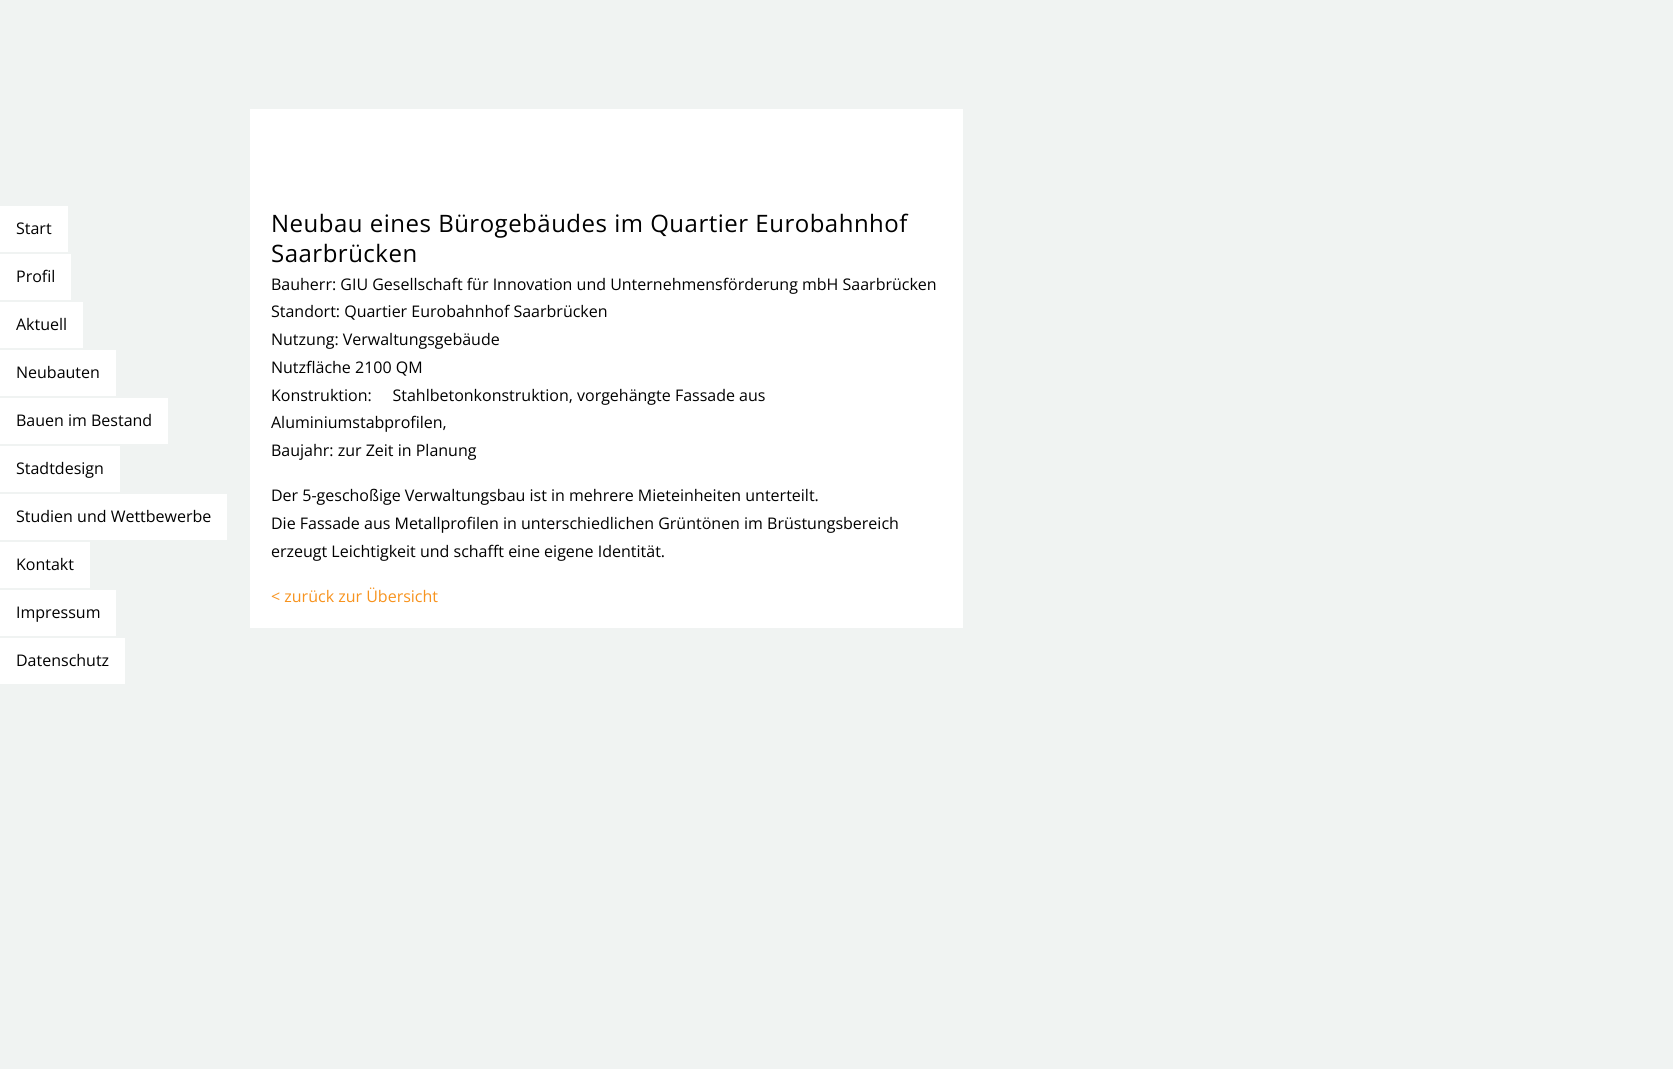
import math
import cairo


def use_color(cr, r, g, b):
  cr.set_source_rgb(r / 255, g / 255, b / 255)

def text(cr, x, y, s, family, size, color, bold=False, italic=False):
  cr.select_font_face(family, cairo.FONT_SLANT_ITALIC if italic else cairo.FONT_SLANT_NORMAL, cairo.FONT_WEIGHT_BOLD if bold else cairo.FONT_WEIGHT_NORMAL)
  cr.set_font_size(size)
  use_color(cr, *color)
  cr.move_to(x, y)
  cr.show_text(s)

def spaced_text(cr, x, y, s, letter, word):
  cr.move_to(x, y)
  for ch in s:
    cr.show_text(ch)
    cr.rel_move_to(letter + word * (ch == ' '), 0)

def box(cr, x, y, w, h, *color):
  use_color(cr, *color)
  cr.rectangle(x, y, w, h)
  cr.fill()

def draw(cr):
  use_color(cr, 240, 243, 242)
  cr.paint()
  box(cr, 0, 206, 68, 46, 255, 255, 255)
  box(cr, 0, 254, 71, 46, 255, 255, 255)
  box(cr, 0, 302, 83, 46, 255, 255, 255)
  box(cr, 0, 350, 116, 46, 255, 255, 255)
  box(cr, 0, 398, 168, 46, 255, 255, 255)
  box(cr, 0, 446, 120, 46, 255, 255, 255)
  box(cr, 0, 494, 227, 46, 255, 255, 255)
  box(cr, 0, 542, 90, 46, 255, 255, 255)
  box(cr, 0, 590, 116, 46, 255, 255, 255)
  box(cr, 0, 638, 125, 46, 255, 255, 255)
  box(cr, 250, 109, 713, 519, 255, 255, 255)
  text(cr, 16, 234, "Start", "Open Sans", 16, (0, 0, 0))
  text(cr, 16, 282, "Profil", "Open Sans", 16, (0, 0, 0))
  text(cr, 16, 330, "Aktuell", "Open Sans", 16, (0, 0, 0))
  text(cr, 16, 378, "Neubauten", "Open Sans", 16, (0, 0, 0))
  text(cr, 16, 426, "Bauen im Bestand", "Open Sans", 16, (0, 0, 0))
  text(cr, 16, 474, "Stadtdesign", "Open Sans", 16, (0, 0, 0))
  text(cr, 16, 522, "Studien und Wettbewerbe", "Open Sans", 16, (0, 0, 0))
  text(cr, 16, 570, "Kontakt", "Open Sans", 16, (0, 0, 0))
  text(cr, 16, 618, "Impressum", "Open Sans", 16, (0, 0, 0))
  text(cr, 16, 666, "Datenschutz", "Open Sans", 16, (0, 0, 0))
  cr.set_font_size(24)
  spaced_text(cr, 271, 232, "Neubau eines Bürogebäudes im Quartier Eurobahnhof", 0.5, 0)
  spaced_text(cr, 271, 262, "Saarbrücken", 0.5, 0)
  text(cr, 271, 290, "Bauherr: GIU Gesellschaft für Innovation und Unternehmensförderung mbH Saarbrücken", "Open Sans", 16, (0, 0, 0))
  text(cr, 271, 317, "Standort: Quartier Eurobahnhof Saarbrücken", "Open Sans", 16, (0, 0, 0))
  text(cr, 271, 345, "Nutzung: Verwaltungsgebäude", "Open Sans", 16, (0, 0, 0))
  text(cr, 271, 373, "Nutzfläche 2100 QM", "Open Sans", 16, (0, 0, 0))
  text(cr, 271, 401, "Konstruktion:     Stahlbetonkonstruktion, vorgehängte Fassade aus", "Open Sans", 16, (0, 0, 0))
  text(cr, 271, 428, "Aluminiumstabprofilen,", "Open Sans", 16, (0, 0, 0))
  text(cr, 271, 456, "Baujahr: zur Zeit in Planung", "Open Sans", 16, (0, 0, 0))
  text(cr, 271, 501, "Der 5-geschoßige Verwaltungsbau ist in mehrere Mieteinheiten unterteilt.", "Open Sans", 16, (0, 0, 0))
  text(cr, 271, 529, "Die Fassade aus Metallprofilen in unterschiedlichen Grüntönen im Brüstungsbereich", "Open Sans", 16, (0, 0, 0))
  text(cr, 271, 557, "erzeugt Leichtigkeit und schafft eine eigene Identität.", "Open Sans", 16, (0, 0, 0))
  text(cr, 271, 602, "< zurück zur Übersicht", "Open Sans", 16, (247, 147, 30))


surface = cairo.ImageSurface(cairo.FORMAT_RGB24, 1673, 1069)
cr = cairo.Context(surface)
options = cairo.FontOptions()
options.set_hint_metrics(cairo.HINT_METRICS_OFF)
options.set_hint_style(cairo.HINT_STYLE_NONE)
cr.set_font_options(options)
cr.set_miter_limit(4)
draw(cr)
surface.write_to_png("out.png")
